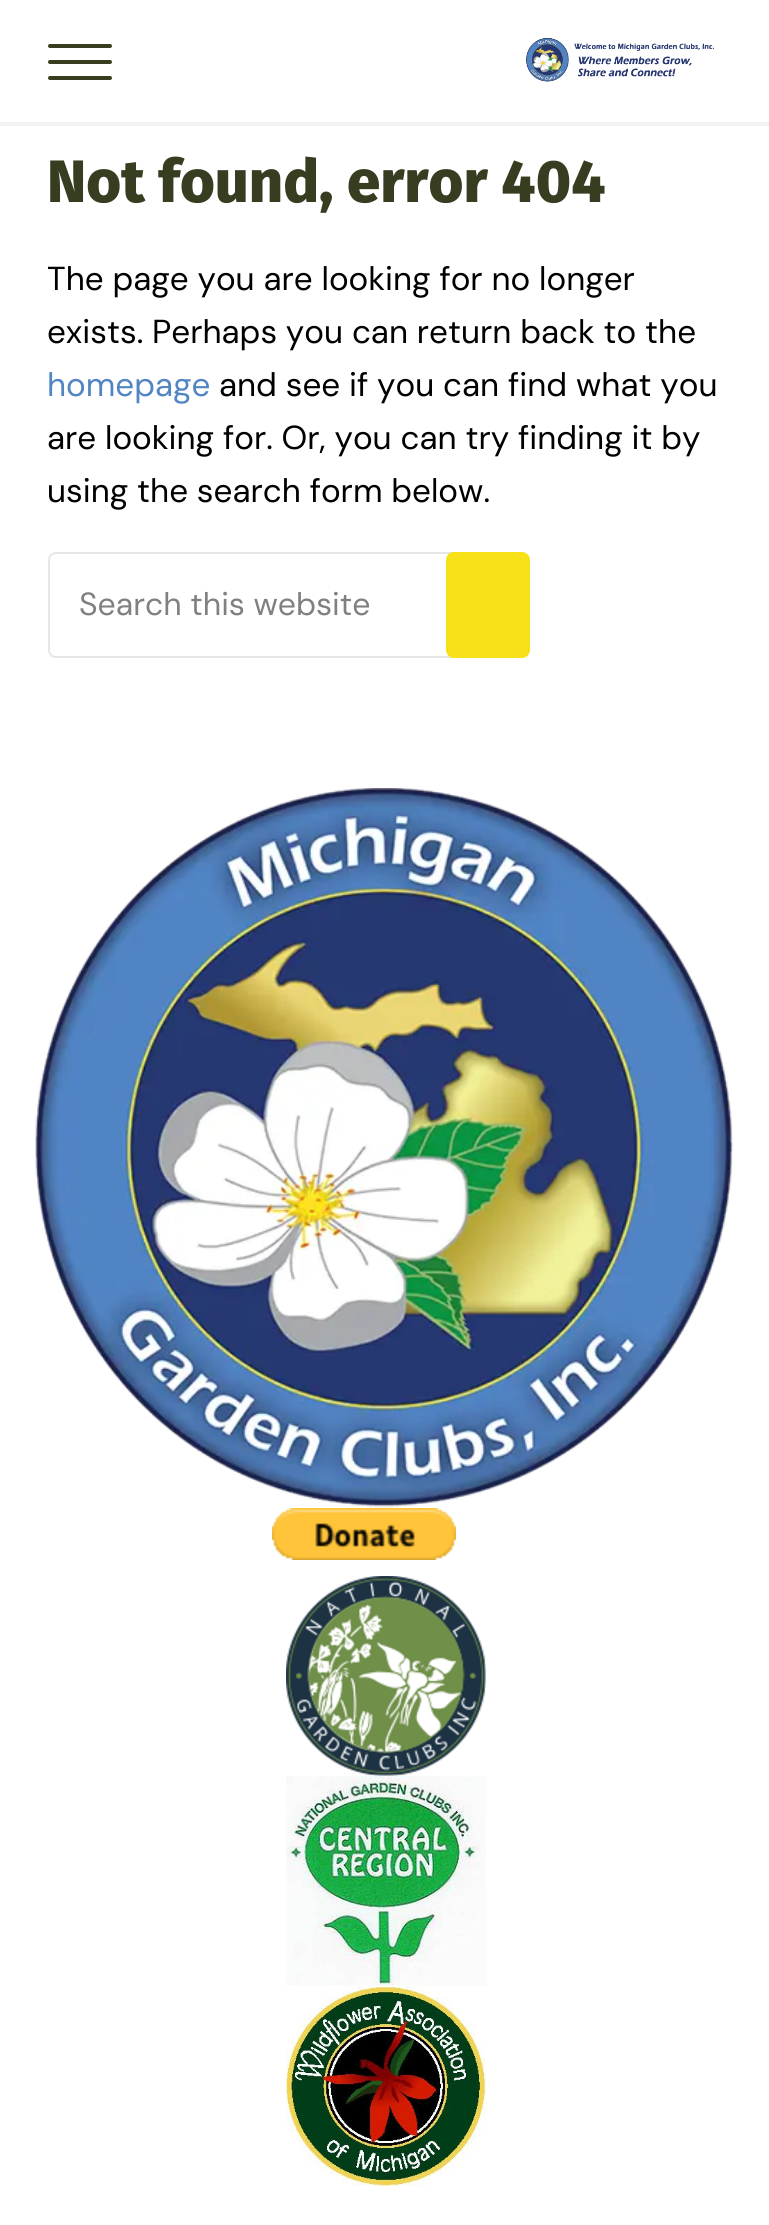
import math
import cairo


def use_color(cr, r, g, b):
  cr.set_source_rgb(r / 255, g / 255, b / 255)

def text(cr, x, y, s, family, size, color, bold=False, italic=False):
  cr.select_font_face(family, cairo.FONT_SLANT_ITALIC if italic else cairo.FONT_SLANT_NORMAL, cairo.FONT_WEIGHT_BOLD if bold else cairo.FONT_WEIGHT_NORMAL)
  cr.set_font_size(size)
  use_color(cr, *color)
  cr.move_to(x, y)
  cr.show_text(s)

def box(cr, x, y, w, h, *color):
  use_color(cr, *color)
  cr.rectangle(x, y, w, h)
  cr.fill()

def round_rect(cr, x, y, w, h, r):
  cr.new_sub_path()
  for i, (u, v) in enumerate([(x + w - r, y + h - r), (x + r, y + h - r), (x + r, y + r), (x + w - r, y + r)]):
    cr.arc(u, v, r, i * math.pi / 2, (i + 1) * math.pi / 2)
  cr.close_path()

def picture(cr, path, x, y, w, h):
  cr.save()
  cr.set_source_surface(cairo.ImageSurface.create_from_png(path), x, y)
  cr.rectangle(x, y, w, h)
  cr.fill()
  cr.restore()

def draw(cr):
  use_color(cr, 255, 255, 255)
  cr.paint()
  box(cr, 0, 122, 769, 4, 243, 243, 244)
  use_color(cr, 55, 61, 32)
  round_rect(cr, 48, 60, 64, 4, 2)
  cr.fill()
  round_rect(cr, 48, 44, 64, 4, 2)
  cr.fill()
  round_rect(cr, 48, 76, 64, 4, 2)
  cr.fill()
  picture(cr, "img_01.png", 525, 37, 190, 45)
  round_rect(cr, 49, 553, 440, 104, 7)
  use_color(cr, 230, 230, 230)
  cr.stroke()
  use_color(cr, 247, 226, 25)
  round_rect(cr, 446, 552, 84, 106, 8)
  cr.fill()
  picture(cr, "img_02.png", 35, 788, 698, 720)
  picture(cr, "img_03.png", 272, 1508, 184, 52)
  picture(cr, "img_04.png", 286, 1576, 200, 200)
  picture(cr, "img_05.png", 286, 1776, 200, 210)
  picture(cr, "img_06.png", 286, 1986, 200, 200)
  text(cr, 47, 202, "Not found, error 404", "Fira Sans ExtraBold", 59.75, (55, 61, 32))
  text(cr, 47, 290, "The page you are looking for no longer", "DM Sans", 33.2, (0, 0, 0))
  text(cr, 47, 343, "exists. Perhaps you can return back to the", "DM Sans", 33.2, (0, 0, 0))
  text(cr, 47, 396, "homepage", "DM Sans", 33.2, (82, 133, 196))
  text(cr, 219, 396, "and see if you can find what you", "DM Sans", 33.2, (0, 0, 0))
  text(cr, 47, 449, "are looking for. Or, you can try finding it by", "DM Sans", 33.2, (0, 0, 0))
  text(cr, 47, 502, "using the search form below.", "DM Sans", 33.2, (0, 0, 0))
  text(cr, 79, 615, "Search this website", "DM Sans", 32, (128, 128, 128))


surface = cairo.ImageSurface(cairo.FORMAT_RGB24, 769, 2225)
cr = cairo.Context(surface)
options = cairo.FontOptions()
options.set_hint_metrics(cairo.HINT_METRICS_OFF)
options.set_hint_style(cairo.HINT_STYLE_NONE)
cr.set_font_options(options)
cr.set_miter_limit(4)
draw(cr)
surface.write_to_png("out.png")
